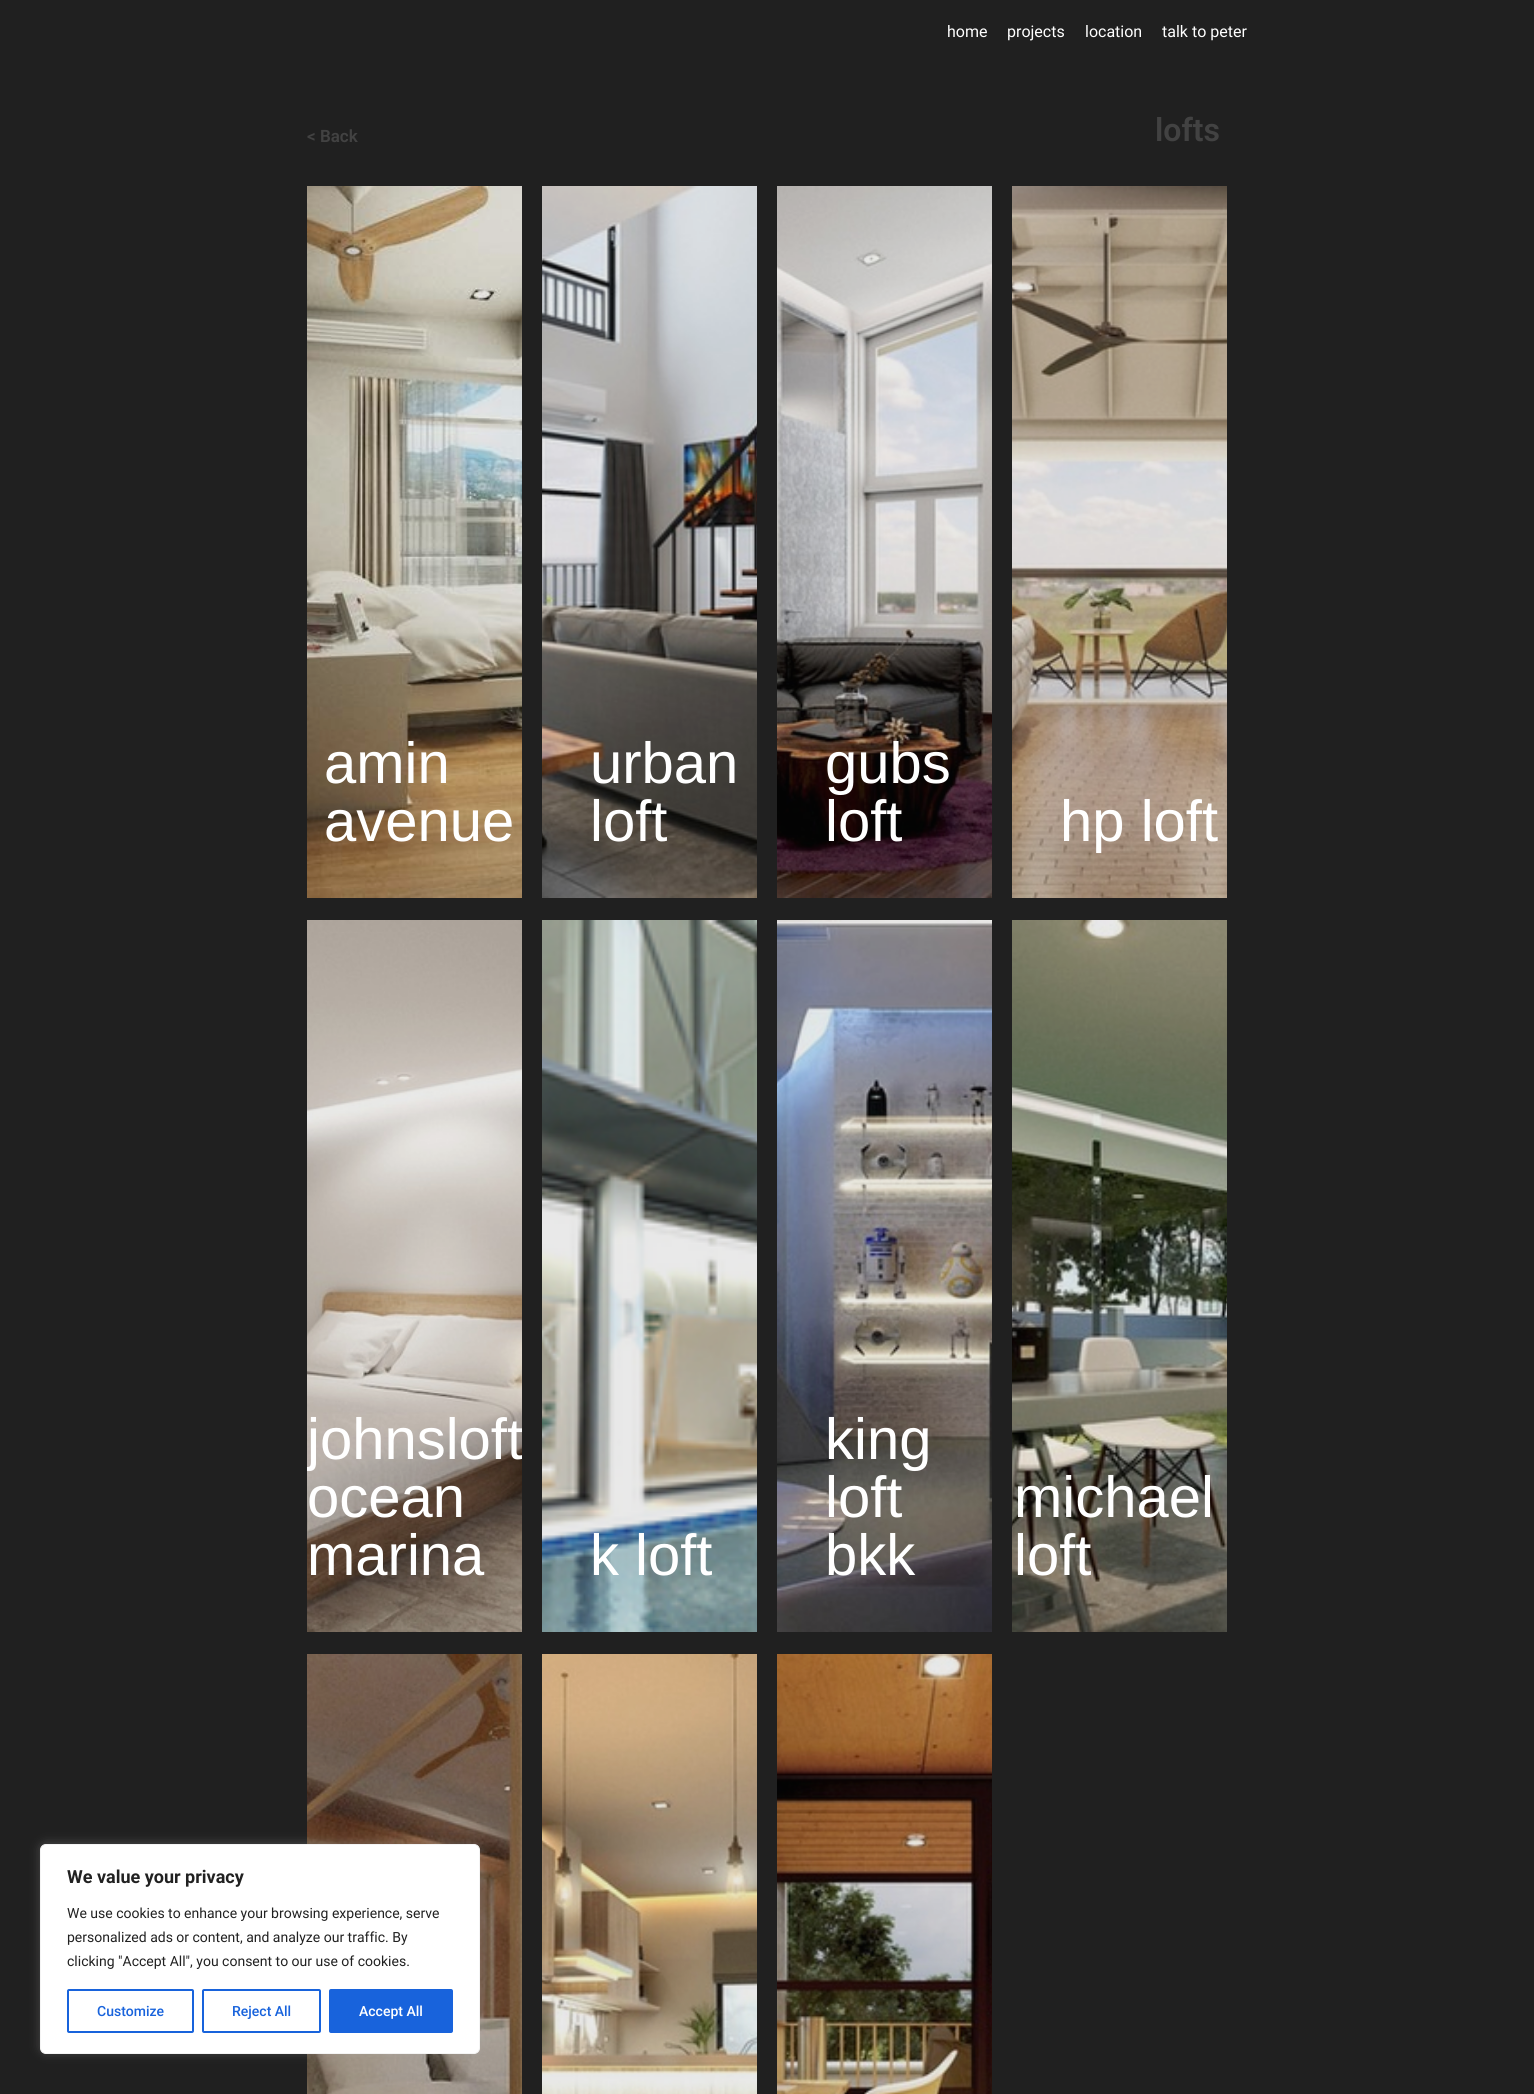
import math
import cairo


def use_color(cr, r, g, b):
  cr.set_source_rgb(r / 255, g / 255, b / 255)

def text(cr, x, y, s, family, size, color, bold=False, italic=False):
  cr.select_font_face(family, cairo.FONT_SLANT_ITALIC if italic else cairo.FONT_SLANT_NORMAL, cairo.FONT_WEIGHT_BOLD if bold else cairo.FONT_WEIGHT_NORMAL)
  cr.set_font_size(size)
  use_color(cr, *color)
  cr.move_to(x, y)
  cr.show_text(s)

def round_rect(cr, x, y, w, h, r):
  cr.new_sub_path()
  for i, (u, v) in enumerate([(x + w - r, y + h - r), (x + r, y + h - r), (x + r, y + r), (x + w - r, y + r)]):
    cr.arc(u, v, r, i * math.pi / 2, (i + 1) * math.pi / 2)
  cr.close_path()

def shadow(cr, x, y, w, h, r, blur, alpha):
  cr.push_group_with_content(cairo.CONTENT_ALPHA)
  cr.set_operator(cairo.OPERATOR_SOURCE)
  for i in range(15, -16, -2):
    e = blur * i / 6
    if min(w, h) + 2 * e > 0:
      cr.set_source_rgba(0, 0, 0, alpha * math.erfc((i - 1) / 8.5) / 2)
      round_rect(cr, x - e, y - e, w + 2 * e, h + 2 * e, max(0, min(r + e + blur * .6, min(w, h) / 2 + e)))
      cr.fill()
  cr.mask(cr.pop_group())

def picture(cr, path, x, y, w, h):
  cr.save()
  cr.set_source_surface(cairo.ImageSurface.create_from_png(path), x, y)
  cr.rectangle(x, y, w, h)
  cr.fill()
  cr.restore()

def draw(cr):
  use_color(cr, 32, 32, 32)
  cr.paint()
  picture(cr, "img_01.png", 307, 186, 215, 712)
  picture(cr, "img_02.png", 542, 186, 215, 712)
  picture(cr, "img_03.png", 777, 186, 215, 712)
  picture(cr, "img_04.png", 1012, 186, 215, 712)
  picture(cr, "img_05.png", 307, 920, 215, 712)
  picture(cr, "img_06.png", 542, 920, 215, 712)
  picture(cr, "img_07.png", 777, 920, 215, 712)
  picture(cr, "img_08.png", 1012, 920, 215, 712)
  picture(cr, "img_09.png", 307, 1654, 215, 440)
  picture(cr, "img_10.png", 542, 1654, 215, 440)
  picture(cr, "img_11.png", 777, 1654, 215, 440)
  use_color(cr, 172, 171, 171)
  shadow(cr, 40, 1843, 440, 210, 6, 5, 0.3)
  use_color(cr, 255, 255, 255)
  round_rect(cr, 40.5, 1844.5, 439, 209, 5.5)
  cr.fill_preserve()
  use_color(cr, 244, 244, 244)
  cr.set_line_width(1)
  cr.stroke()
  round_rect(cr, 68, 1990, 125, 42, 1)
  use_color(cr, 24, 99, 220)
  cr.set_line_width(2)
  cr.stroke()
  round_rect(cr, 203, 1990, 117, 42, 1)
  cr.stroke()
  round_rect(cr, 330, 1990, 122, 42, 1)
  cr.fill_preserve()
  cr.stroke()
  text(cr, 947, 37, "home", "Roboto", 16, (255, 255, 255))
  text(cr, 1007, 37, "projects", "Roboto", 16, (255, 255, 255))
  text(cr, 1085, 37, "location", "Roboto", 16, (255, 255, 255))
  text(cr, 1162, 37, "talk to peter", "Roboto", 16, (255, 255, 255))
  text(cr, 307, 142, "< Back", "Roboto SemiBold", 17, (66, 66, 66))
  text(cr, 1155, 141, "lofts", "Roboto SemiBold", 32, (66, 66, 66))
  text(cr, 324, 783, "amin", "Liberation Sans", 58, (255, 255, 255))
  text(cr, 324, 841, "avenue", "Liberation Sans", 58, (255, 255, 255))
  text(cr, 590, 783, "urban", "Liberation Sans", 58, (255, 255, 255))
  text(cr, 590, 841, "loft", "Liberation Sans", 58, (255, 255, 255))
  text(cr, 825, 783, "gubs", "Liberation Sans", 58, (255, 255, 255))
  text(cr, 825, 841, "loft", "Liberation Sans", 58, (255, 255, 255))
  text(cr, 1060, 841, "hp loft", "Liberation Sans", 58, (255, 255, 255))
  cr.save()
  cr.rectangle(307, 920, 215, 712)
  cr.clip()
  text(cr, 307, 1459, "johnsloft", "Liberation Sans", 58, (255, 255, 255))
  cr.restore()
  text(cr, 307, 1517, "ocean", "Liberation Sans", 58, (255, 255, 255))
  text(cr, 307, 1575, "marina", "Liberation Sans", 58, (255, 255, 255))
  text(cr, 590, 1575, "k loft", "Liberation Sans", 58, (255, 255, 255))
  text(cr, 825, 1459, "king", "Liberation Sans", 58, (255, 255, 255))
  text(cr, 825, 1517, "loft", "Liberation Sans", 58, (255, 255, 255))
  text(cr, 825, 1575, "bkk", "Liberation Sans", 58, (255, 255, 255))
  text(cr, 1014, 1517, "michael", "Liberation Sans", 58, (255, 255, 255))
  text(cr, 1014, 1575, "loft", "Liberation Sans", 58, (255, 255, 255))
  text(cr, 67, 1883, "We value your privacy", "Roboto", 18, (33, 33, 33), bold=True)
  text(cr, 67, 1918, "We use cookies to enhance your browsing experience, serve", "Roboto", 14, (33, 33, 33))
  text(cr, 67, 1942, "personalized ads or content, and analyze our traffic. By", "Roboto", 14, (33, 33, 33))
  text(cr, 67, 1966, "clicking \"Accept All\", you consent to our use of cookies.", "Roboto", 14, (33, 33, 33))
  text(cr, 97, 2016, "Customize", "Roboto Medium", 14, (24, 99, 220))
  text(cr, 232, 2016, "Reject All", "Roboto Medium", 14, (24, 99, 220))
  text(cr, 359, 2016, "Accept All", "Roboto Medium", 14, (255, 255, 255))


surface = cairo.ImageSurface(cairo.FORMAT_RGB24, 1534, 2094)
cr = cairo.Context(surface)
options = cairo.FontOptions()
options.set_hint_metrics(cairo.HINT_METRICS_OFF)
options.set_hint_style(cairo.HINT_STYLE_NONE)
cr.set_font_options(options)
cr.set_miter_limit(4)
draw(cr)
surface.write_to_png("out.png")
